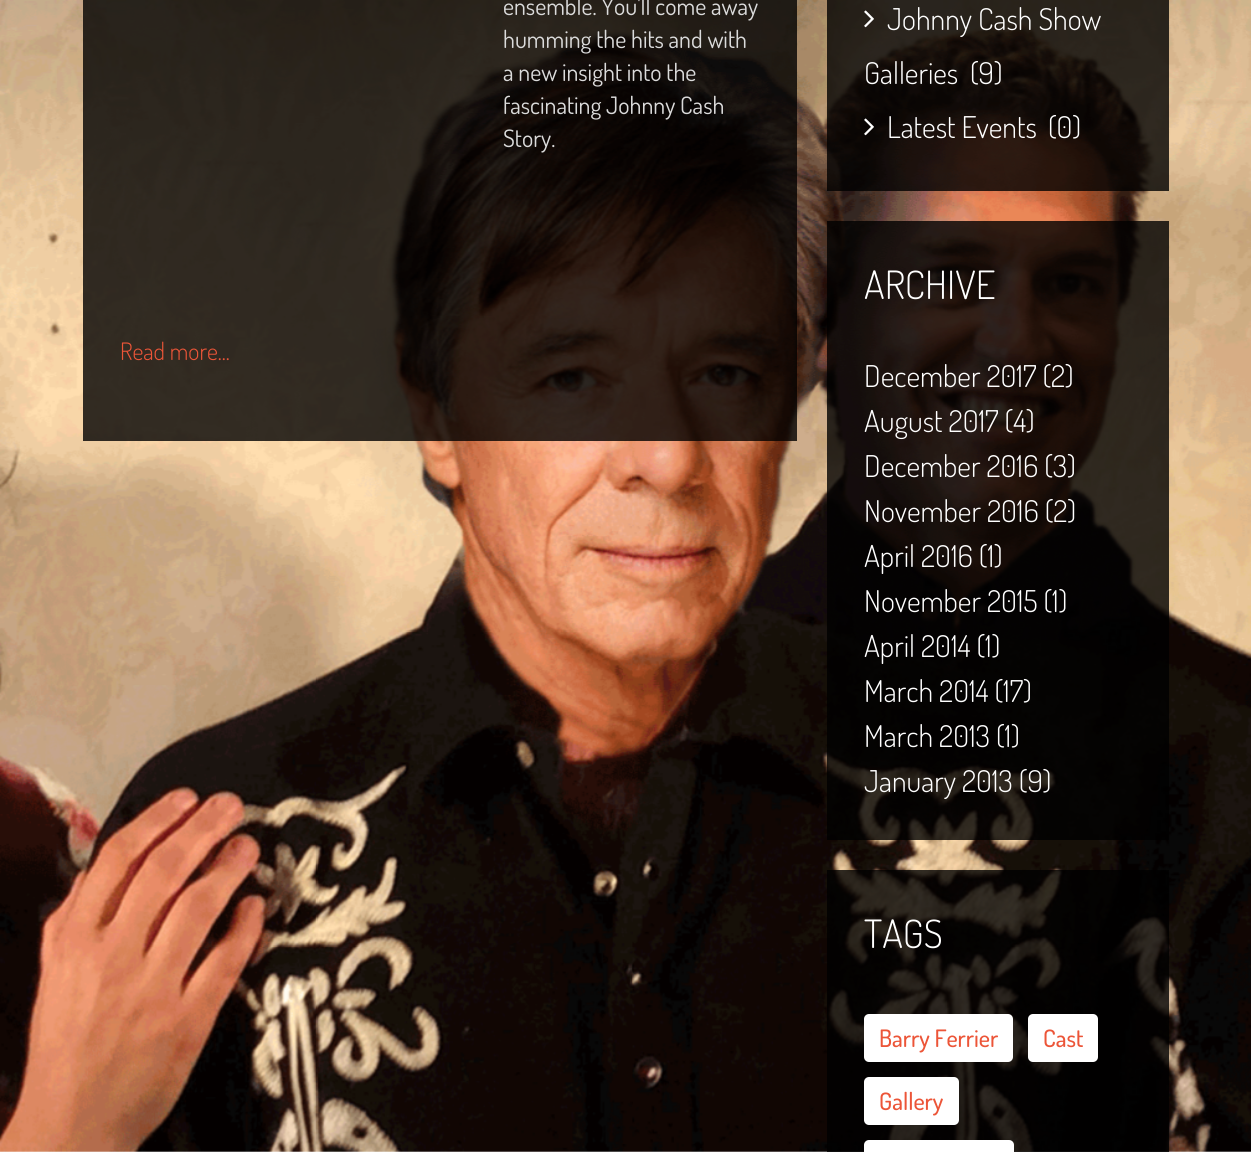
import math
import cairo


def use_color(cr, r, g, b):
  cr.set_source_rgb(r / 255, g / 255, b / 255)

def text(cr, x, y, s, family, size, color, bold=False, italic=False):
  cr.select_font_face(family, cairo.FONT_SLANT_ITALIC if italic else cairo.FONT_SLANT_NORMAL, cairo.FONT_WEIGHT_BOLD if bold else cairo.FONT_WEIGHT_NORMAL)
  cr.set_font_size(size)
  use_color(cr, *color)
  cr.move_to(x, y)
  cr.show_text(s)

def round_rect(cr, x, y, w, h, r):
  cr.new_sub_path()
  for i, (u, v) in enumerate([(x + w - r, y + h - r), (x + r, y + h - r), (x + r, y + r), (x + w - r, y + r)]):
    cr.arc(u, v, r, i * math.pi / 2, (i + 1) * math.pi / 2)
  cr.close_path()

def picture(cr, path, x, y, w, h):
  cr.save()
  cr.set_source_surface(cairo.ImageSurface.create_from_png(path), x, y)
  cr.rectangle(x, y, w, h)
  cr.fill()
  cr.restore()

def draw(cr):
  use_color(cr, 255, 255, 255)
  cr.paint()
  picture(cr, "img_01.png", 0, 0, 1251, 1152)
  cr.set_source_rgba(0, 0, 0, 0.8)
  cr.rectangle(83, 0, 714, 441)
  cr.fill()
  cr.rectangle(827, 0, 342, 191)
  cr.fill()
  picture(cr, "img_02.png", 864, 10, 10, 18)
  picture(cr, "img_03.png", 864, 118, 10, 18)
  cr.rectangle(827, 221, 342, 619)
  cr.fill()
  cr.rectangle(827, 870, 342, 282)
  cr.fill()
  use_color(cr, 255, 255, 255)
  round_rect(cr, 864, 1014, 149, 48, 5)
  cr.fill()
  round_rect(cr, 1028, 1014, 70, 48, 5)
  cr.fill()
  round_rect(cr, 864, 1077, 95, 48, 5)
  cr.fill()
  round_rect(cr, 864, 1140, 150, 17, 5)
  cr.fill()
  text(cr, 503, 15, "ensemble. You'll come away", "Dosis", 24, (219, 219, 219))
  text(cr, 503, 48, "humming the hits and with", "Dosis", 24, (219, 219, 219))
  text(cr, 503, 81, "a new insight into the", "Dosis", 24, (219, 219, 219))
  text(cr, 503, 114, "fascinating Johnny Cash", "Dosis", 24, (219, 219, 219))
  text(cr, 503, 147, "Story.", "Dosis", 24, (219, 219, 219))
  text(cr, 120, 360, "Read more...", "Dosis Light", 24, (236, 85, 56))
  text(cr, 887, 30, "Johnny Cash Show", "Dosis Light", 30, (255, 255, 255))
  text(cr, 864, 84, "Galleries", "Dosis Light", 30, (255, 255, 255))
  text(cr, 970, 84, "(9)", "Dosis Light", 30, (255, 255, 255))
  text(cr, 887, 138, "Latest Events", "Dosis Light", 30, (255, 255, 255))
  text(cr, 1048, 138, "(0)", "Dosis Light", 30, (255, 255, 255))
  text(cr, 864, 299, "ARCHIVE", "Dosis Light", 39, (255, 255, 255))
  text(cr, 864, 387, "December 2017 (2)", "Dosis Light", 30, (255, 255, 255))
  text(cr, 864, 432, "August 2017 (4)", "Dosis Light", 30, (255, 255, 255))
  text(cr, 864, 477, "December 2016 (3)", "Dosis Light", 30, (255, 255, 255))
  text(cr, 864, 522, "November 2016 (2)", "Dosis Light", 30, (255, 255, 255))
  text(cr, 864, 567, "April 2016 (1)", "Dosis Light", 30, (255, 255, 255))
  text(cr, 864, 612, "November 2015 (1)", "Dosis Light", 30, (255, 255, 255))
  text(cr, 864, 657, "April 2014 (1)", "Dosis Light", 30, (255, 255, 255))
  text(cr, 864, 702, "March 2014 (17)", "Dosis Light", 30, (255, 255, 255))
  text(cr, 864, 747, "March 2013 (1)", "Dosis Light", 30, (255, 255, 255))
  text(cr, 864, 792, "January 2013 (9)", "Dosis Light", 30, (255, 255, 255))
  text(cr, 864, 948, "TAGS", "Dosis Light", 39, (255, 255, 255))
  text(cr, 879, 1047, "Barry Ferrier", "Dosis Medium", 24, (236, 85, 56))
  text(cr, 1043, 1047, "Cast", "Dosis Medium", 24, (236, 85, 56))
  text(cr, 879, 1110, "Gallery", "Dosis Medium", 24, (236, 85, 56))


surface = cairo.ImageSurface(cairo.FORMAT_RGB24, 1251, 1152)
cr = cairo.Context(surface)
options = cairo.FontOptions()
options.set_hint_metrics(cairo.HINT_METRICS_OFF)
options.set_hint_style(cairo.HINT_STYLE_NONE)
cr.set_font_options(options)
cr.set_miter_limit(4)
draw(cr)
surface.write_to_png("out.png")
